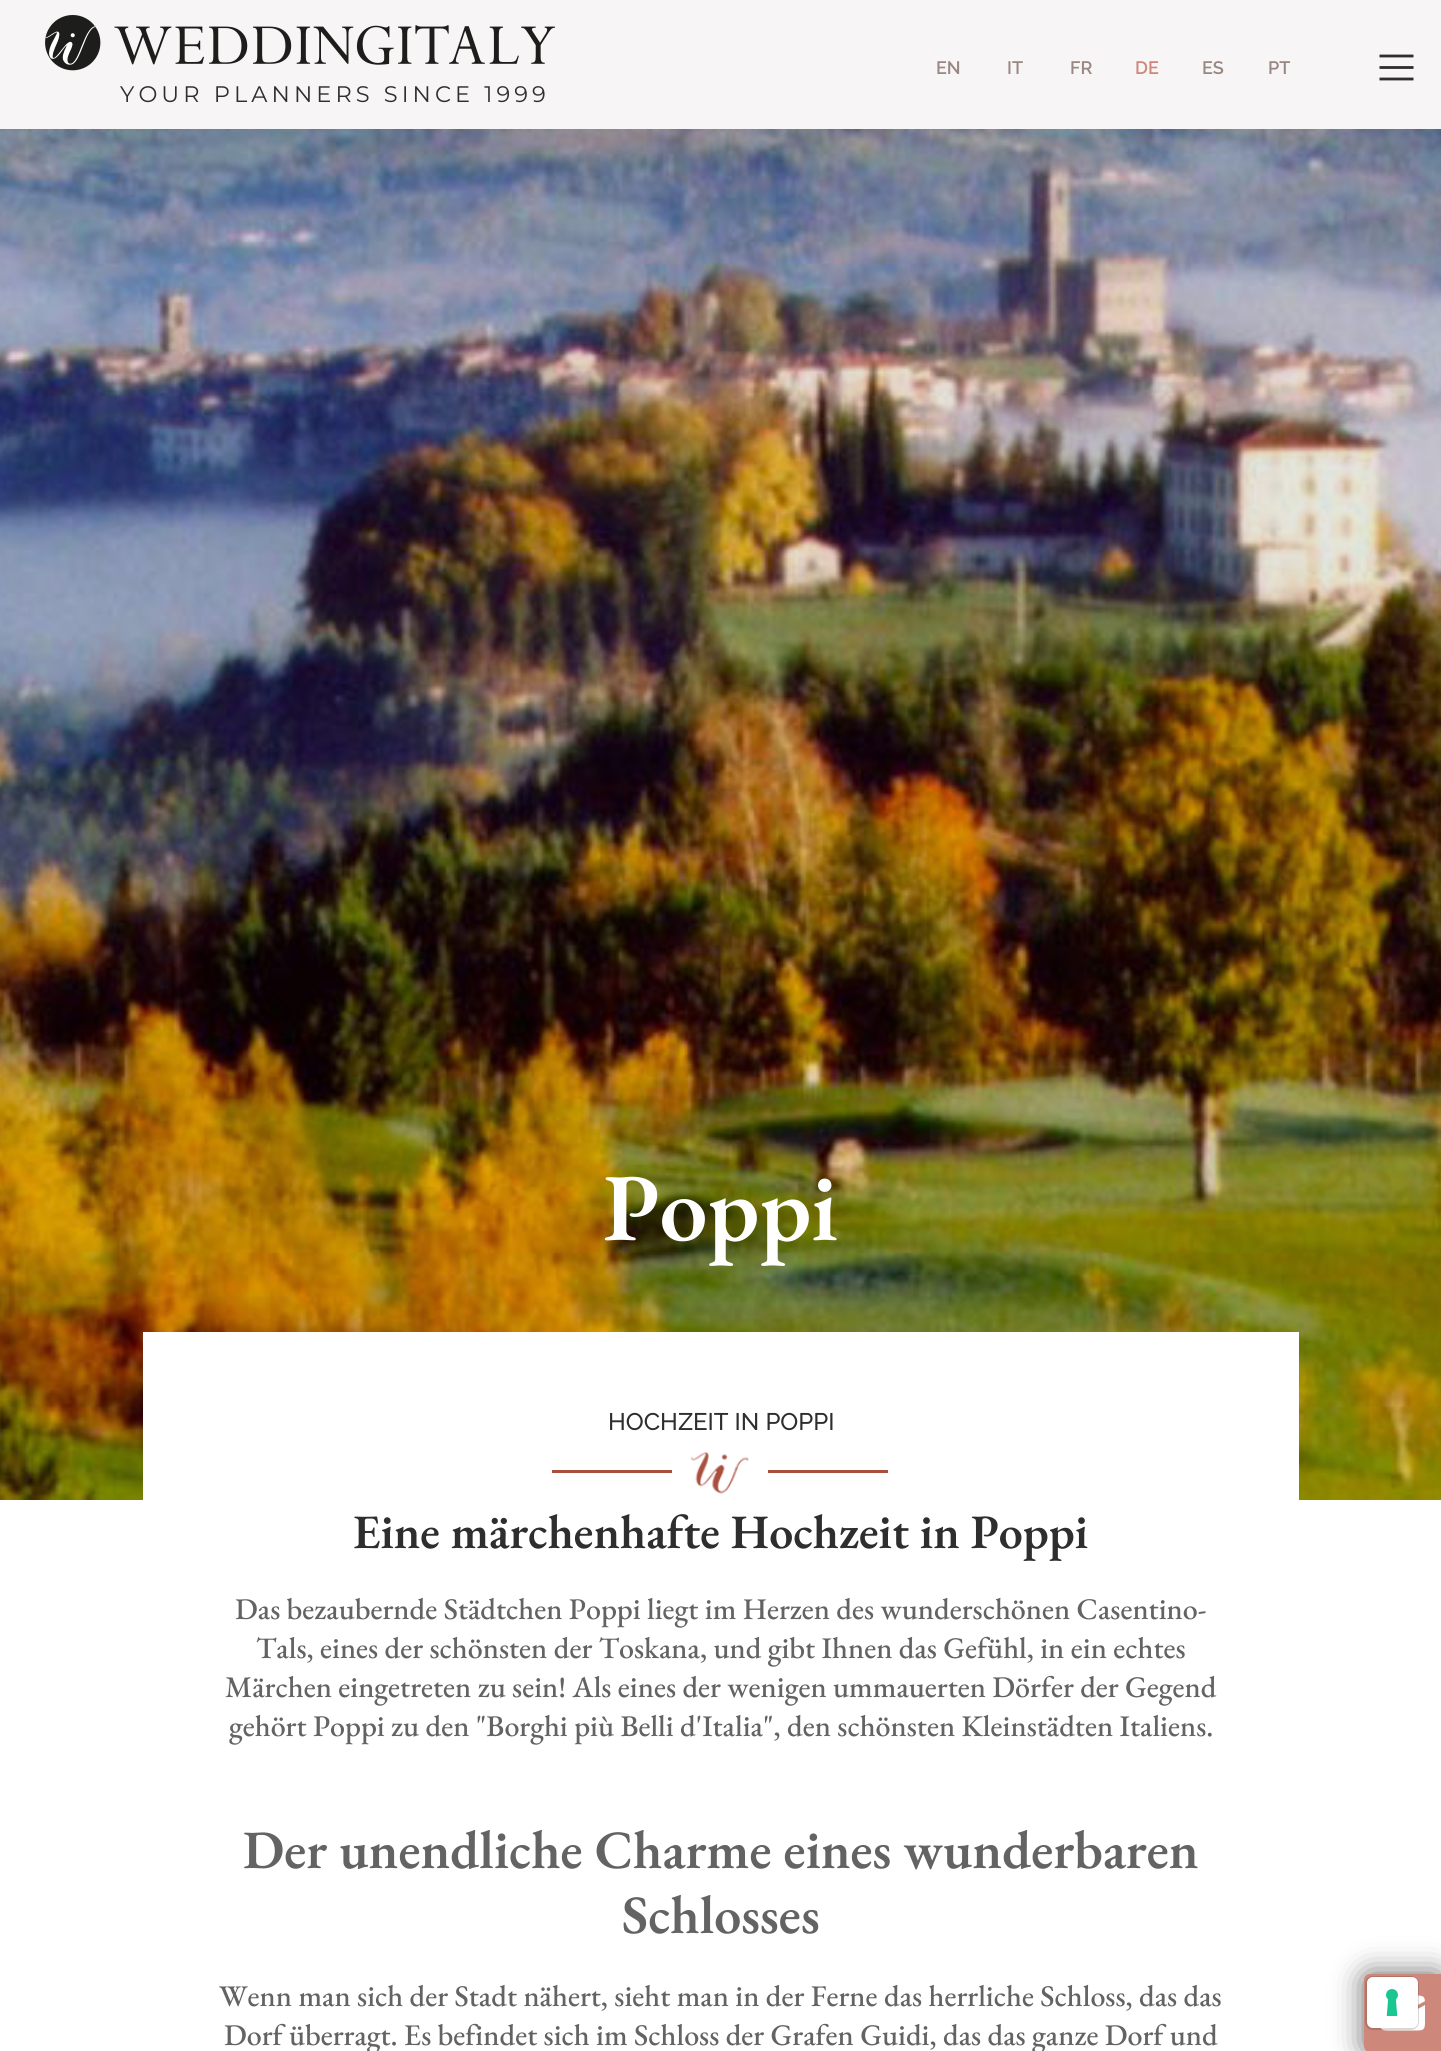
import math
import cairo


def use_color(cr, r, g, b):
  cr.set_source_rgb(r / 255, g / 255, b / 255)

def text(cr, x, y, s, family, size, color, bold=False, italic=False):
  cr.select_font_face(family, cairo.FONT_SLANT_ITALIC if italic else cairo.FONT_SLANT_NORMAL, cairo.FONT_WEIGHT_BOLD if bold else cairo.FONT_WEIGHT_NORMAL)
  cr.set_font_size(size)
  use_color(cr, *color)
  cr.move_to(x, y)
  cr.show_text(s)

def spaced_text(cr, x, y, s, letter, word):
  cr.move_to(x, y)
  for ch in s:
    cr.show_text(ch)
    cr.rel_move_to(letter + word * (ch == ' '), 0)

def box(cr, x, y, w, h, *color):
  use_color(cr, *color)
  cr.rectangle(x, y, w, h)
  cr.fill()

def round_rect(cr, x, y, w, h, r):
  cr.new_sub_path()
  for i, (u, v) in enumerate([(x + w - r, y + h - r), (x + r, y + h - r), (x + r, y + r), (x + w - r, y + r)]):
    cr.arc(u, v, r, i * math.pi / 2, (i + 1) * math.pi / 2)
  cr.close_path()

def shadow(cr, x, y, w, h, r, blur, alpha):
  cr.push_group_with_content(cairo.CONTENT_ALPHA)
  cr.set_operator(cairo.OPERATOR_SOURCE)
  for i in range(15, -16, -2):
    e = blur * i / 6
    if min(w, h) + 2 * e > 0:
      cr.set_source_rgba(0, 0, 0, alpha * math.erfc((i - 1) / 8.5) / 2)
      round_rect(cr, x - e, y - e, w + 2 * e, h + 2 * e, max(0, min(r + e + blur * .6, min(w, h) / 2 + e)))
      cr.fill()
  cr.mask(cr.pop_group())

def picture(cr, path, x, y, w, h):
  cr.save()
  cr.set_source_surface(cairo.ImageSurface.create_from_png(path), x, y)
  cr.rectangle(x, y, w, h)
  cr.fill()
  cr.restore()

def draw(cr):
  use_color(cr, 255, 255, 255)
  cr.paint()
  box(cr, 0, 0, 1441, 129, 247, 245, 245)
  cr.new_path()
  cr.move_to(1379.5, 56)
  cr.line_to(1413.5, 56)
  cr.move_to(1379.5, 67.5)
  cr.line_to(1413.5, 67.5)
  cr.move_to(1379.5, 79)
  cr.line_to(1413.5, 79)
  use_color(cr, 45, 46, 45)
  cr.set_line_width(2.8)
  cr.stroke()
  picture(cr, "img_01.png", 45, 15, 510, 56)
  picture(cr, "img_02.png", 0, 129, 1441, 1371)
  box(cr, 143, 1332, 1156, 168, 255, 255, 255)
  picture(cr, "img_03.png", 690, 1452, 59, 42)
  box(cr, 552, 1470, 120, 3, 169, 79, 62)
  box(cr, 768, 1470, 120, 3, 169, 79, 62)
  use_color(cr, 102, 102, 102)
  shadow(cr, 1364, 1974, 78, 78, 6, 15, 1)
  use_color(cr, 206, 136, 123)
  cr.new_path()
  cr.move_to(1370, 1974)
  cr.line_to(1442, 1974)
  cr.line_to(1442, 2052)
  cr.line_to(1370, 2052)
  cr.curve_to(1366.5, 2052, 1364, 2049.5, 1364, 2046)
  cr.line_to(1364, 1980)
  cr.curve_to(1364, 1976.5, 1366.5, 1974, 1370, 1974)
  cr.close_path()
  cr.fill()
  picture(cr, "img_04.png", 1380, 1995, 45, 36)
  round_rect(cr, 1366, 1977, 52, 52, 7)
  cr.set_source_rgba(0, 0, 0, 0.15)
  cr.set_line_width(2)
  cr.stroke()
  use_color(cr, 255, 255, 255)
  round_rect(cr, 1367, 1977, 51, 51, 6)
  cr.fill()
  picture(cr, "img_05.png", 1386, 1989, 12, 27)
  text(cr, 936, 74, "EN", "Raleway SemiBold", 18, (153, 135, 129))
  text(cr, 1007, 74, "IT", "Raleway SemiBold", 18, (153, 135, 129))
  text(cr, 1070, 74, "FR", "Raleway SemiBold", 18, (153, 135, 129))
  text(cr, 1135, 74, "DE", "Raleway SemiBold", 18, (206, 136, 123))
  text(cr, 1202, 74, "ES", "Raleway SemiBold", 18, (153, 135, 129))
  text(cr, 1268, 74, "PT", "Raleway SemiBold", 18, (153, 135, 129))
  cr.select_font_face("Montserrat Thin")
  cr.set_font_size(22.5)
  use_color(cr, 45, 46, 45)
  spaced_text(cr, 120, 102, "YOUR PLANNERS SINCE 1999", 4.1, 0)
  text(cr, 603, 1240, "Poppi", "EB Garamond SemiBold", 96, (255, 255, 255))
  text(cr, 608, 1430, "HOCHZEIT IN POPPI", "Raleway Medium", 24, (45, 46, 45))
  text(cr, 353, 1548, "Eine märchenhafte Hochzeit in Poppi", "EB Garamond SemiBold", 48, (45, 46, 45))
  text(cr, 235, 1619, "Das bezaubernde Städtchen Poppi liegt im Herzen des wunderschönen Casentino-", "EB Garamond Medium", 30, (99, 99, 99))
  text(cr, 256, 1658, "Tals, eines der schönsten der Toskana, und gibt Ihnen das Gefühl, in ein echtes", "EB Garamond Medium", 30, (99, 99, 99))
  text(cr, 225, 1697, "Märchen eingetreten zu sein! Als eines der wenigen ummauerten Dörfer der Gegend", "EB Garamond Medium", 30, (99, 99, 99))
  text(cr, 229, 1736, "gehört Poppi zu den \"Borghi più Belli d'Italia\", den schönsten Kleinstädten Italiens.", "EB Garamond Medium", 30, (99, 99, 99))
  text(cr, 243, 1868, "Der unendliche Charme eines wunderbaren", "EB Garamond SemiBold", 54, (99, 99, 99))
  text(cr, 622, 1933, "Schlosses", "EB Garamond SemiBold", 54, (99, 99, 99))
  text(cr, 219, 2006, "Wenn man sich der Stadt nähert, sieht man in der Ferne das herrliche Schloss, das das", "EB Garamond Medium", 30, (99, 99, 99))
  text(cr, 224, 2045, "Dorf überragt. Es befindet sich im Schloss der Grafen Guidi, das das ganze Dorf und", "EB Garamond Medium", 30, (99, 99, 99))


surface = cairo.ImageSurface(cairo.FORMAT_RGB24, 1441, 2051)
cr = cairo.Context(surface)
options = cairo.FontOptions()
options.set_hint_metrics(cairo.HINT_METRICS_OFF)
options.set_hint_style(cairo.HINT_STYLE_NONE)
cr.set_font_options(options)
cr.set_miter_limit(4)
draw(cr)
surface.write_to_png("out.png")
